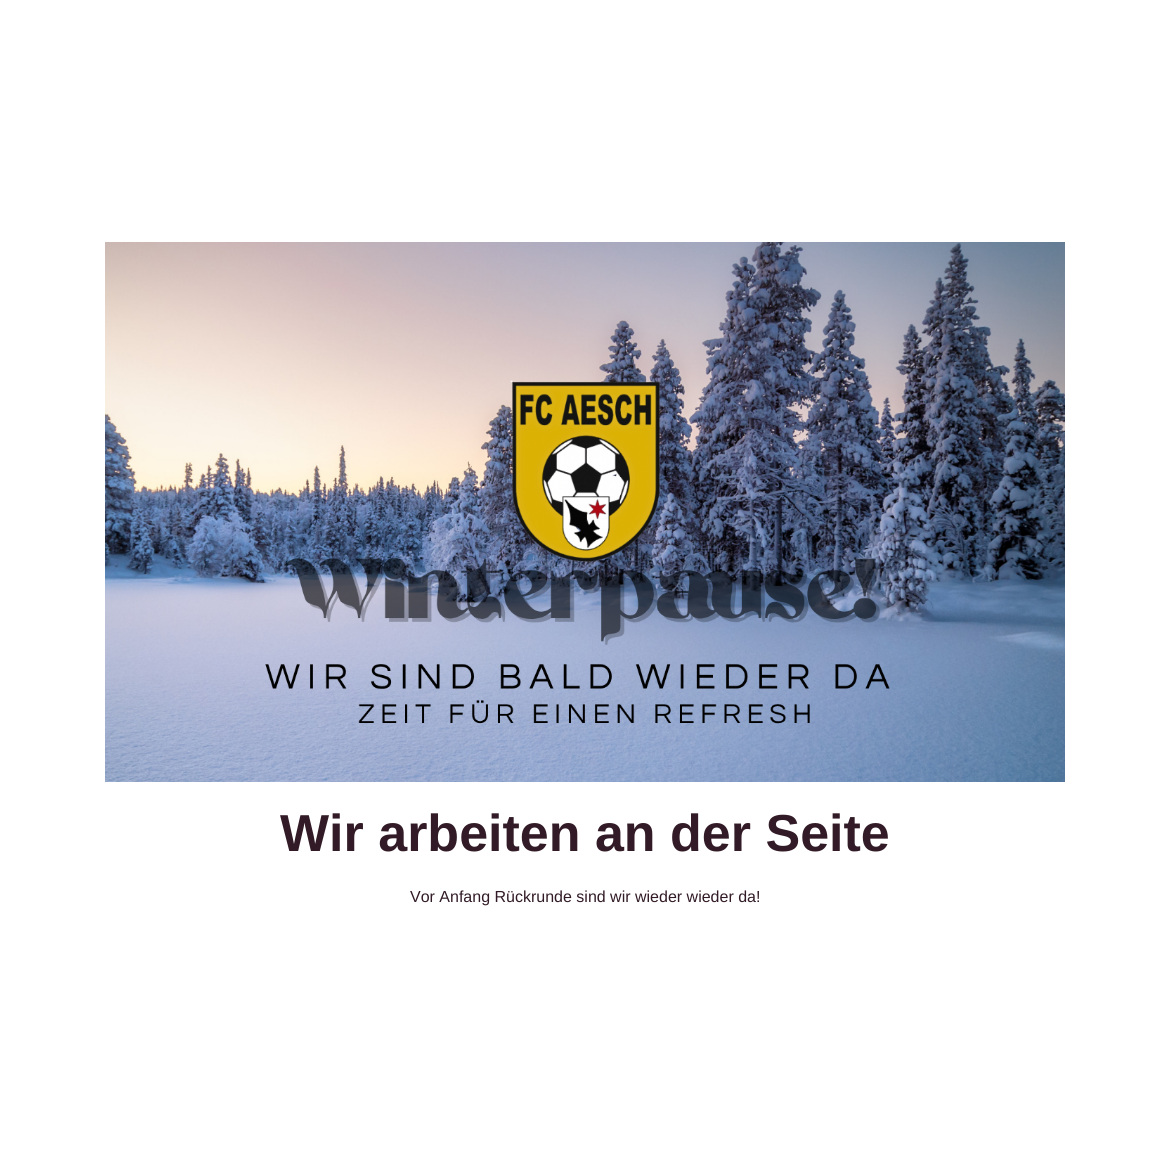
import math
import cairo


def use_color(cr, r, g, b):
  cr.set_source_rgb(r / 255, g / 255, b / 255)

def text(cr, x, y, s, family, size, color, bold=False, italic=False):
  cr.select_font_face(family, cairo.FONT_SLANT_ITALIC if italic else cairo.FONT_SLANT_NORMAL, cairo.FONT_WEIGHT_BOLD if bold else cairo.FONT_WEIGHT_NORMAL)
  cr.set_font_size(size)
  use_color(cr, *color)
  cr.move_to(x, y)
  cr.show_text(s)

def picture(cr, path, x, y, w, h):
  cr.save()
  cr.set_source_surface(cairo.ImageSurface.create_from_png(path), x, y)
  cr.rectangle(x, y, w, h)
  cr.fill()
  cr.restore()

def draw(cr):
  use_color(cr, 255, 255, 255)
  cr.paint()
  picture(cr, "img_01.png", 105, 242, 960, 540)
  text(cr, 280, 851, "Wir arbeiten an der Seite", "Liberation Sans", 52, (50, 27, 38), bold=True)
  text(cr, 410, 902, "Vor Anfang Rückrunde sind wir wieder wieder da!", "Liberation Sans", 16, (50, 27, 38))


surface = cairo.ImageSurface(cairo.FORMAT_RGB24, 1170, 1151)
cr = cairo.Context(surface)
options = cairo.FontOptions()
options.set_hint_metrics(cairo.HINT_METRICS_OFF)
options.set_hint_style(cairo.HINT_STYLE_NONE)
cr.set_font_options(options)
cr.set_miter_limit(4)
draw(cr)
surface.write_to_png("out.png")
